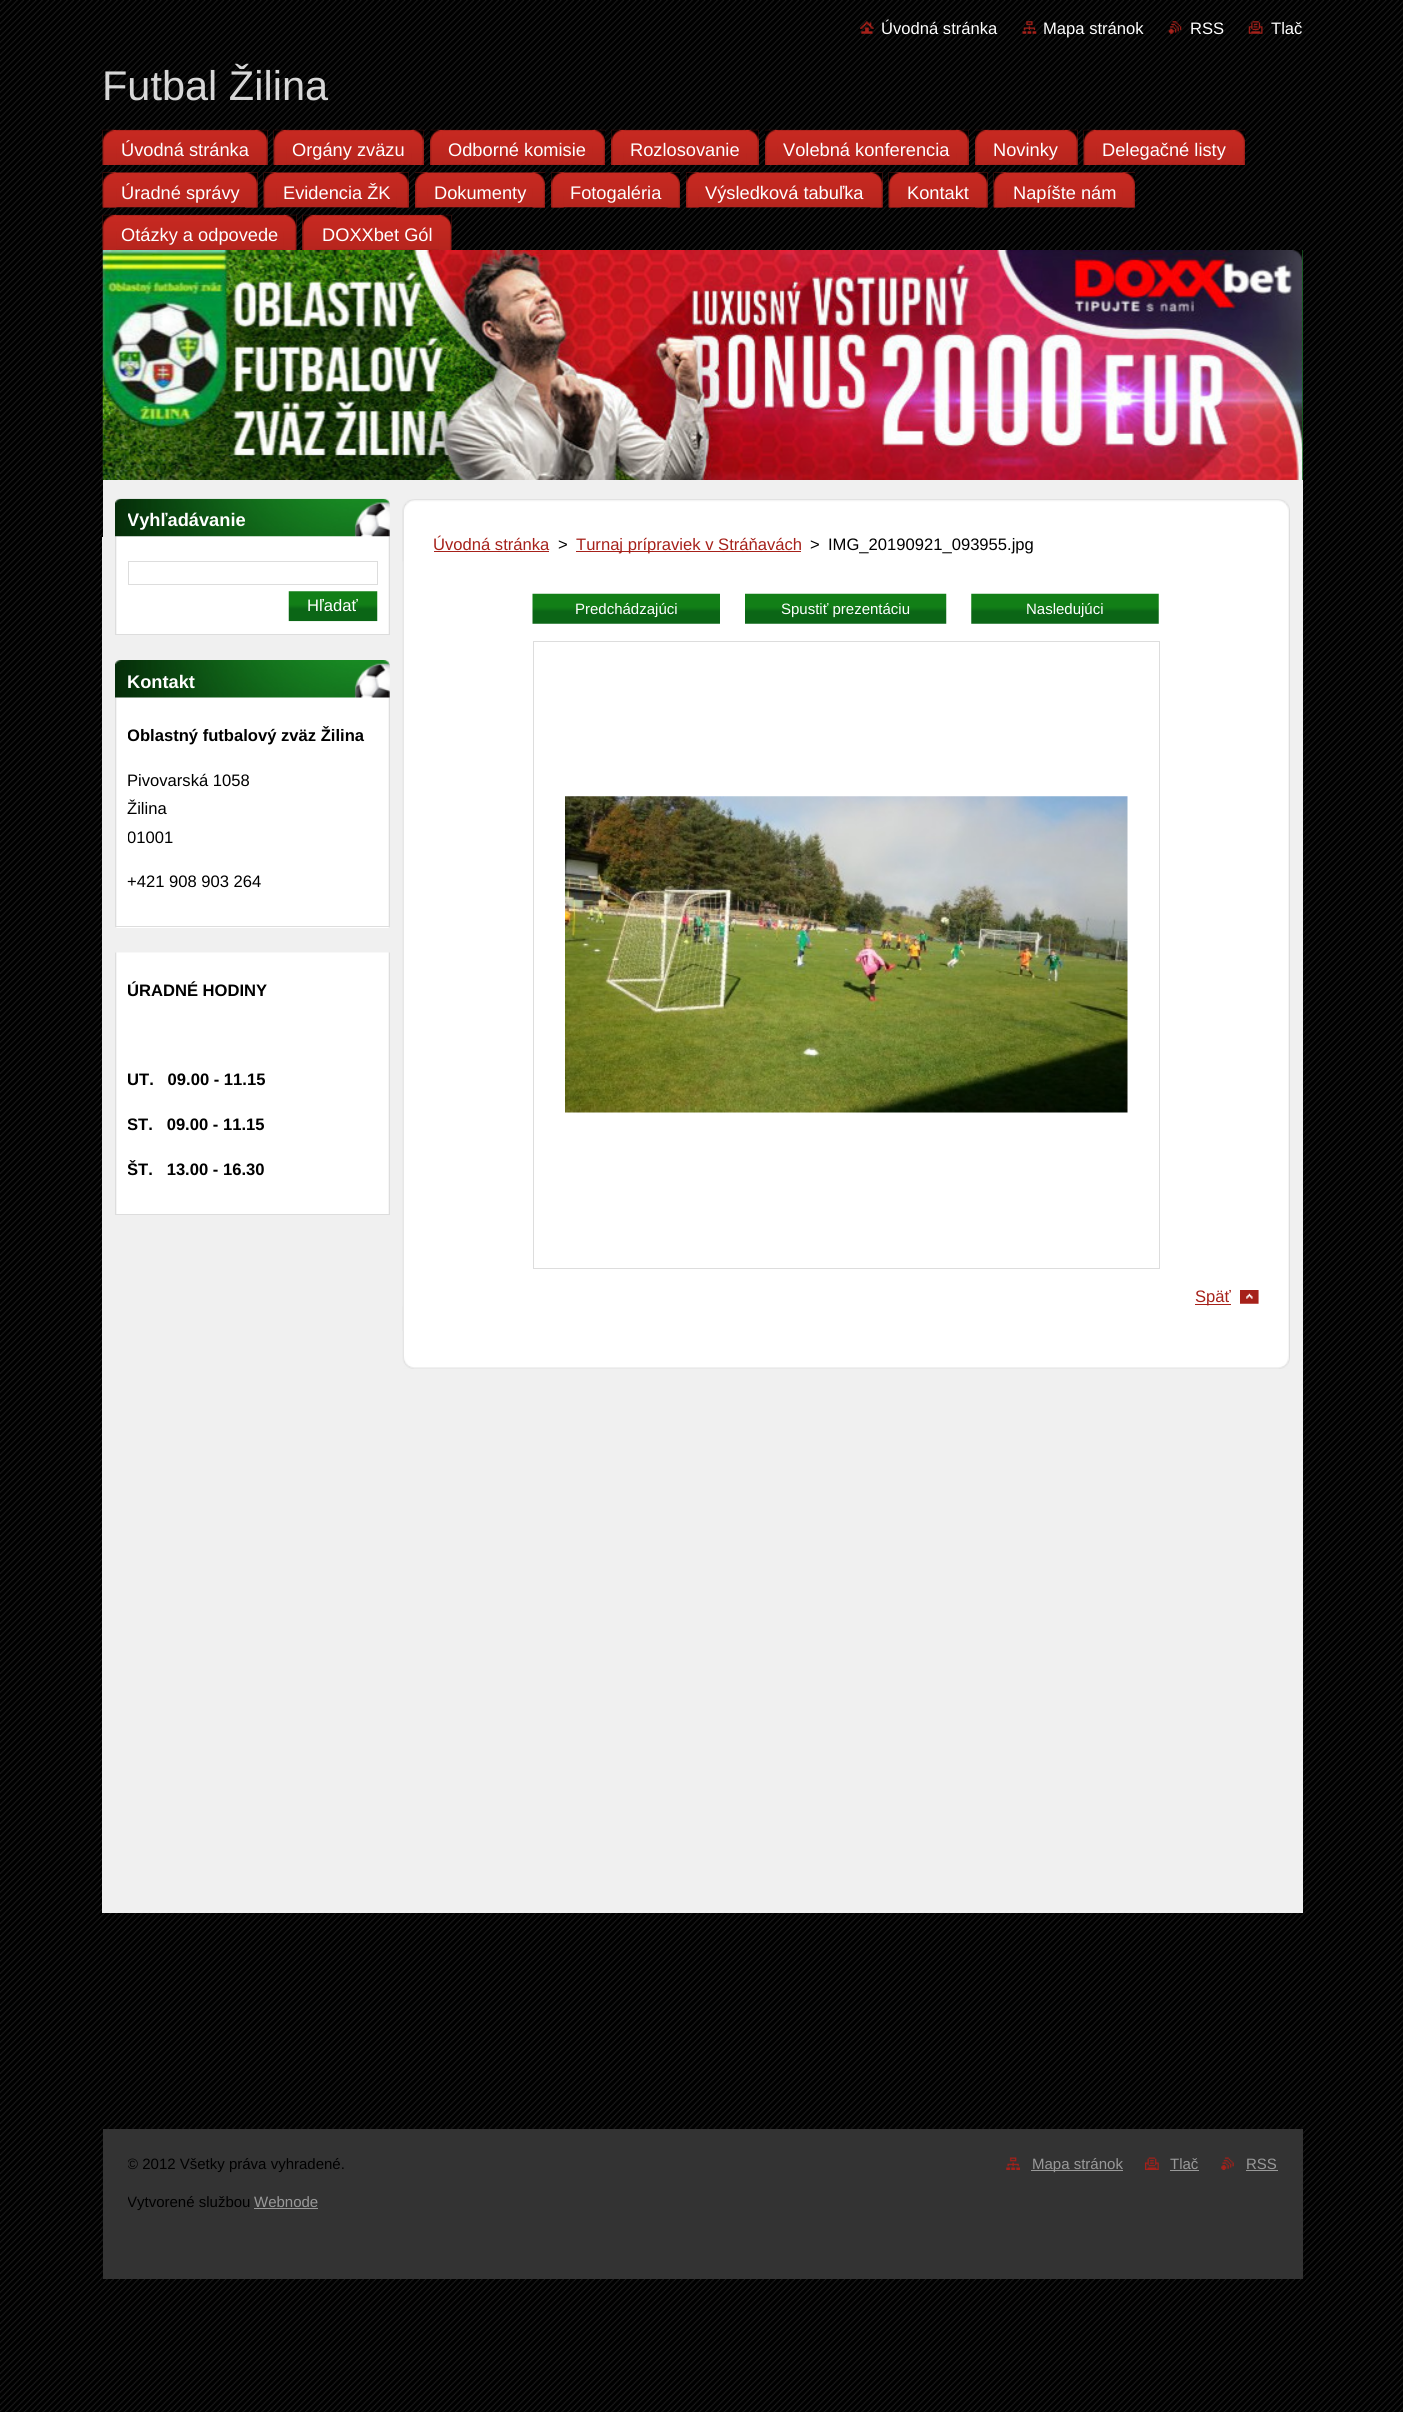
import math
import cairo


def use_color(cr, r, g, b):
  cr.set_source_rgb(r / 255, g / 255, b / 255)

def text(cr, x, y, s, family, size, color, bold=False, italic=False):
  cr.select_font_face(family, cairo.FONT_SLANT_ITALIC if italic else cairo.FONT_SLANT_NORMAL, cairo.FONT_WEIGHT_BOLD if bold else cairo.FONT_WEIGHT_NORMAL)
  cr.set_font_size(size)
  use_color(cr, *color)
  cr.move_to(x, y)
  cr.show_text(s)

def box(cr, x, y, w, h, *color):
  use_color(cr, *color)
  cr.rectangle(x, y, w, h)
  cr.fill()

def picture(cr, path, x, y, w, h):
  cr.save()
  cr.set_source_surface(cairo.ImageSurface.create_from_png(path), x, y)
  cr.rectangle(x, y, w, h)
  cr.fill()
  cr.restore()

def draw(cr):
  use_color(cr, 255, 255, 255)
  cr.paint()
  picture(cr, "img_01.png", 0, 0, 1403, 2412)
  box(cr, 102, 537, 1201, 1376, 240, 240, 240)
  picture(cr, "img_02.png", 860, 21, 14, 13)
  picture(cr, "img_03.png", 1022, 21, 15, 13)
  picture(cr, "img_04.png", 1168, 21, 14, 13)
  picture(cr, "img_05.png", 1248, 21, 15, 13)
  picture(cr, "img_06.png", 102, 129, 166, 36)
  picture(cr, "img_07.png", 102, 129, 15, 36)
  picture(cr, "img_08.png", 255, 129, 13, 36)
  picture(cr, "img_09.png", 273, 129, 151, 36)
  picture(cr, "img_10.png", 273, 129, 14, 36)
  picture(cr, "img_11.png", 411, 129, 13, 36)
  picture(cr, "img_12.png", 430, 129, 175, 36)
  picture(cr, "img_13.png", 430, 129, 13, 36)
  picture(cr, "img_14.png", 592, 129, 13, 36)
  picture(cr, "img_15.png", 611, 129, 148, 36)
  picture(cr, "img_16.png", 611, 129, 13, 36)
  picture(cr, "img_17.png", 746, 129, 13, 36)
  picture(cr, "img_18.png", 765, 129, 204, 36)
  picture(cr, "img_19.png", 765, 129, 13, 36)
  picture(cr, "img_20.png", 956, 129, 13, 36)
  picture(cr, "img_21.png", 975, 129, 103, 36)
  picture(cr, "img_22.png", 975, 129, 13, 36)
  picture(cr, "img_23.png", 1065, 129, 13, 36)
  picture(cr, "img_24.png", 1083, 129, 162, 36)
  picture(cr, "img_25.png", 1083, 129, 14, 36)
  picture(cr, "img_26.png", 1232, 129, 13, 36)
  picture(cr, "img_27.png", 102, 172, 156, 36)
  picture(cr, "img_28.png", 102, 172, 15, 36)
  picture(cr, "img_29.png", 245, 172, 13, 36)
  picture(cr, "img_30.png", 263, 172, 146, 36)
  picture(cr, "img_31.png", 263, 172, 14, 36)
  picture(cr, "img_32.png", 396, 172, 13, 36)
  picture(cr, "img_33.png", 415, 172, 130, 36)
  picture(cr, "img_34.png", 415, 172, 13, 36)
  picture(cr, "img_35.png", 532, 172, 13, 36)
  picture(cr, "img_36.png", 551, 172, 129, 36)
  picture(cr, "img_37.png", 551, 172, 13, 36)
  picture(cr, "img_38.png", 667, 172, 13, 36)
  picture(cr, "img_39.png", 686, 172, 197, 36)
  picture(cr, "img_40.png", 686, 172, 13, 36)
  picture(cr, "img_29.png", 870, 172, 13, 36)
  picture(cr, "img_41.png", 888, 172, 100, 36)
  picture(cr, "img_42.png", 888, 172, 14, 36)
  picture(cr, "img_43.png", 975, 172, 13, 36)
  picture(cr, "img_44.png", 993, 172, 142, 36)
  picture(cr, "img_45.png", 993, 172, 14, 36)
  picture(cr, "img_46.png", 1122, 172, 13, 36)
  picture(cr, "img_47.png", 102, 214, 195, 36)
  picture(cr, "img_48.png", 102, 214, 15, 36)
  picture(cr, "img_49.png", 283, 214, 14, 36)
  picture(cr, "img_50.png", 302, 214, 150, 36)
  picture(cr, "img_51.png", 302, 214, 13, 36)
  picture(cr, "img_52.png", 438, 214, 14, 36)
  box(cr, 1302, 250, 1, 230, 11, 102, 22)
  picture(cr, "img_53.png", 102, 250, 1201, 230)
  picture(cr, "img_54.png", 1292, 250, 11, 10)
  box(cr, 103, 480, 1200, 57, 240, 240, 240)
  picture(cr, "img_55.png", 115, 536, 275, 98)
  box(cr, 115, 634, 275, 1, 221, 221, 221)
  picture(cr, "img_56.png", 115, 498, 275, 39)
  cr.rectangle(128.5, 561.5, 249, 23)
  cr.set_line_width(1)
  cr.stroke()
  picture(cr, "img_57.png", 288, 591, 90, 31)
  box(cr, 115, 927, 275, 1, 255, 255, 255)
  picture(cr, "img_58.png", 115, 697, 275, 231)
  box(cr, 115, 926, 275, 1, 221, 221, 221)
  picture(cr, "img_59.png", 115, 660, 275, 38)
  picture(cr, "img_60.png", 115, 952, 275, 262)
  box(cr, 115, 1214, 275, 1, 221, 221, 221)
  picture(cr, "img_61.png", 402, 499, 888, 63)
  picture(cr, "img_62.png", 402, 1306, 888, 63)
  picture(cr, "img_63.png", 402, 561, 888, 770)
  box(cr, 434, 551, 115, 1, 166, 33, 26)
  box(cr, 576, 551, 225, 1, 166, 33, 26)
  picture(cr, "img_64.png", 532, 593, 188, 31)
  picture(cr, "img_65.png", 745, 593, 202, 31)
  picture(cr, "img_66.png", 971, 593, 188, 31)
  cr.rectangle(533.5, 641.5, 626, 627)
  use_color(cr, 221, 221, 221)
  cr.stroke()
  picture(cr, "img_67.png", 565, 796, 563, 317)
  picture(cr, "img_68.png", 1240, 1290, 19, 14)
  box(cr, 1195, 1304, 36, 1, 166, 33, 26)
  box(cr, 103, 2129, 1200, 150, 51, 51, 51)
  box(cr, 254, 2208, 64, 1, 153, 153, 153)
  picture(cr, "img_69.png", 1006, 2157, 14, 13)
  box(cr, 1031, 2170, 92, 1, 153, 153, 153)
  picture(cr, "img_70.png", 1145, 2157, 14, 13)
  box(cr, 1170, 2170, 29, 1, 153, 153, 153)
  picture(cr, "img_71.png", 1221, 2157, 13, 13)
  box(cr, 1246, 2170, 32, 1, 153, 153, 153)
  text(cr, 881, 34, "Úvodná stránka", "Liberation Sans", 16.6, (255, 255, 255))
  text(cr, 1043, 34, "Mapa stránok", "Liberation Sans", 16.6, (255, 255, 255))
  text(cr, 1190, 34, "RSS", "Liberation Sans", 16.6, (255, 255, 255))
  text(cr, 1271, 34, "Tlač", "Liberation Sans", 16.6, (255, 255, 255))
  text(cr, 102, 100, "Futbal Žilina", "Liberation Sans", 41.5, (215, 215, 215))
  text(cr, 121, 156, "Úvodná stránka", "Liberation Sans", 18.25, (255, 255, 255))
  text(cr, 292, 156, "Orgány zväzu", "Liberation Sans", 18.25, (255, 255, 255))
  text(cr, 448, 156, "Odborné komisie", "Liberation Sans", 18.25, (255, 255, 255))
  text(cr, 630, 156, "Rozlosovanie", "Liberation Sans", 18.25, (255, 255, 255))
  text(cr, 783, 156, "Volebná konferencia", "Liberation Sans", 18.25, (255, 255, 255))
  text(cr, 993, 156, "Novinky", "Liberation Sans", 18.25, (255, 255, 255))
  text(cr, 1102, 156, "Delegačné listy", "Liberation Sans", 18.25, (255, 255, 255))
  text(cr, 121, 199, "Úradné správy", "Liberation Sans", 18.25, (255, 255, 255))
  text(cr, 283, 199, "Evidencia ŽK", "Liberation Sans", 18.25, (255, 255, 255))
  text(cr, 434, 199, "Dokumenty", "Liberation Sans", 18.25, (255, 255, 255))
  text(cr, 570, 199, "Fotogaléria", "Liberation Sans", 18.25, (255, 255, 255))
  text(cr, 705, 199, "Výsledková tabuľka", "Liberation Sans", 18.25, (255, 255, 255))
  text(cr, 907, 199, "Kontakt", "Liberation Sans", 18.25, (255, 255, 255))
  text(cr, 1013, 199, "Napíšte nám", "Liberation Sans", 18.25, (255, 255, 255))
  text(cr, 121, 241, "Otázky a odpovede", "Liberation Sans", 18.25, (255, 255, 255))
  text(cr, 322, 241, "DOXXbet Gól", "Liberation Sans", 18.25, (255, 255, 255))
  cr.save()
  cr.rectangle(128, 501, 250, 35)
  cr.clip()
  text(cr, 127, 526, "Vyhľadávanie", "Liberation Sans", 18.25, (255, 255, 255), bold=True)
  cr.restore()
  text(cr, 307, 611, "Hľadať", "Liberation Sans", 16.6, (255, 255, 255))
  text(cr, 127, 688, "Kontakt", "Liberation Sans", 18.25, (255, 255, 255), bold=True)
  cr.save()
  cr.rectangle(128, 723, 250, 191)
  cr.clip()
  text(cr, 127, 741, "Oblastný futbalový zväz Žilina", "Liberation Sans", 16.6, (0, 0, 0), bold=True)
  cr.restore()
  text(cr, 127, 786, "Pivovarská 1058", "Liberation Sans", 16.6, (0, 0, 0))
  text(cr, 127, 814, "Žilina", "Liberation Sans", 16.6, (0, 0, 0))
  cr.save()
  cr.rectangle(128, 723, 250, 191)
  cr.clip()
  text(cr, 127, 843, "01001", "Liberation Sans", 16.6, (0, 0, 0))
  cr.restore()
  text(cr, 127, 887, "+421 908 903 264", "Liberation Sans", 16.6, (0, 0, 0))
  cr.save()
  cr.rectangle(128, 978, 250, 223)
  cr.clip()
  text(cr, 127, 996, "ÚRADNÉ HODINY", "Liberation Sans", 16.6, (0, 0, 0), bold=True)
  text(cr, 127, 1085, "UT.   09.00 - 11.15", "Liberation Sans", 16.6, (0, 0, 0), bold=True)
  text(cr, 127, 1130, "ST.   09.00 - 11.15", "Liberation Sans", 16.6, (0, 0, 0), bold=True)
  text(cr, 127, 1175, "ŠT.   13.00 - 16.30", "Liberation Sans", 16.6, (0, 0, 0), bold=True)
  cr.restore()
  text(cr, 433, 550, "Úvodná stránka", "Liberation Sans", 16.6, (166, 33, 26))
  text(cr, 558, 550, ">", "Liberation Sans", 16.6, (0, 0, 0))
  text(cr, 576, 550, "Turnaj prípraviek v Stráňavách", "Liberation Sans", 16.6, (166, 33, 26))
  text(cr, 810, 550, ">", "Liberation Sans", 16.6, (0, 0, 0))
  text(cr, 828, 550, "IMG_20190921_093955.jpg", "Liberation Sans", 16.6, (0, 0, 0))
  text(cr, 575, 614, "Predchádzajúci", "Liberation Sans", 15, (255, 255, 255))
  text(cr, 781, 614, "Spustiť prezentáciu", "Liberation Sans", 15, (255, 255, 255))
  text(cr, 1026, 614, "Nasledujúci", "Liberation Sans", 15, (255, 255, 255))
  text(cr, 1195, 1302, "Späť", "Liberation Sans", 16.6, (166, 33, 26))
  cr.save()
  cr.rectangle(128, 2154, 725, 22)
  cr.clip()
  text(cr, 127, 2169, "© 2012 Všetky práva vyhradené.", "Liberation Sans", 15, (0, 0, 0))
  cr.restore()
  cr.save()
  cr.rectangle(128, 2191, 725, 23)
  cr.clip()
  text(cr, 127, 2207, "Vytvorené službou", "Liberation Sans", 15, (0, 0, 0))
  cr.restore()
  text(cr, 254, 2207, "Webnode", "Liberation Sans", 15, (153, 153, 153))
  text(cr, 1032, 2169, "Mapa stránok", "Liberation Sans", 15, (153, 153, 153))
  text(cr, 1170, 2169, "Tlač", "Liberation Sans", 15, (153, 153, 153))
  text(cr, 1246, 2169, "RSS", "Liberation Sans", 15, (153, 153, 153))


surface = cairo.ImageSurface(cairo.FORMAT_RGB24, 1403, 2412)
cr = cairo.Context(surface)
options = cairo.FontOptions()
options.set_hint_metrics(cairo.HINT_METRICS_OFF)
options.set_hint_style(cairo.HINT_STYLE_NONE)
cr.set_font_options(options)
cr.set_miter_limit(4)
draw(cr)
surface.write_to_png("out.png")
